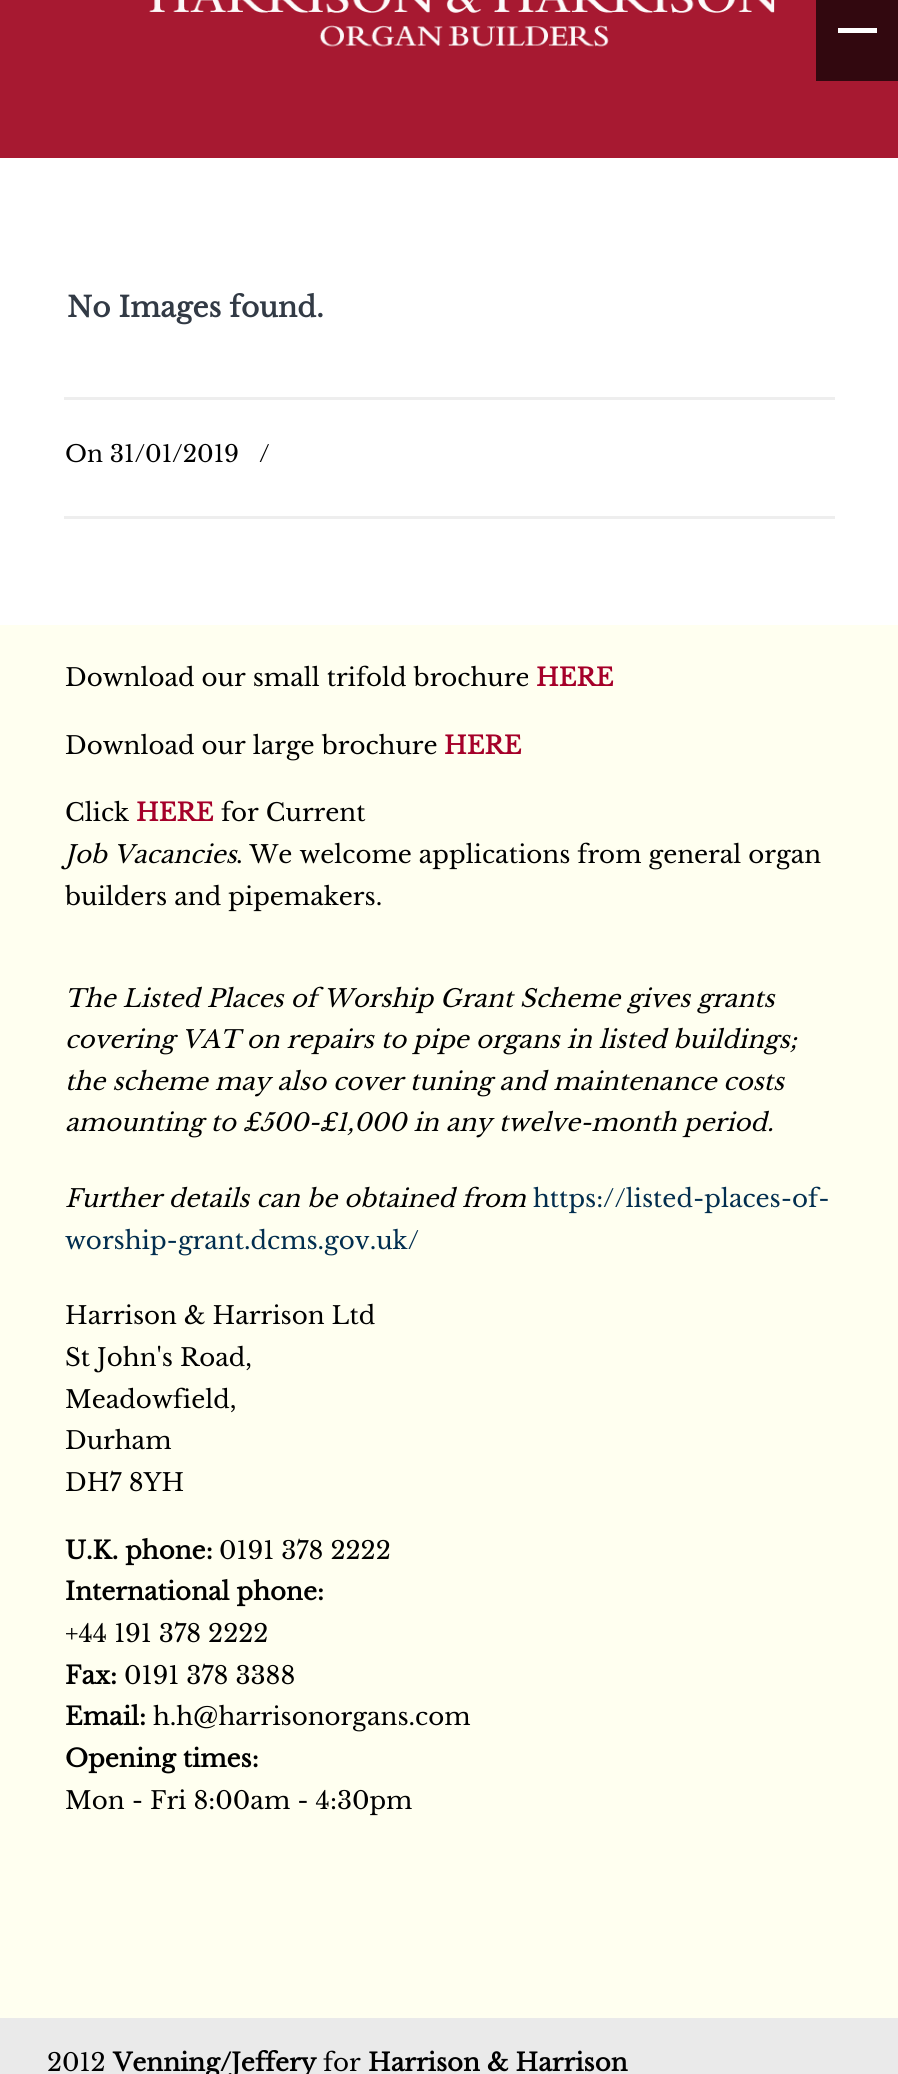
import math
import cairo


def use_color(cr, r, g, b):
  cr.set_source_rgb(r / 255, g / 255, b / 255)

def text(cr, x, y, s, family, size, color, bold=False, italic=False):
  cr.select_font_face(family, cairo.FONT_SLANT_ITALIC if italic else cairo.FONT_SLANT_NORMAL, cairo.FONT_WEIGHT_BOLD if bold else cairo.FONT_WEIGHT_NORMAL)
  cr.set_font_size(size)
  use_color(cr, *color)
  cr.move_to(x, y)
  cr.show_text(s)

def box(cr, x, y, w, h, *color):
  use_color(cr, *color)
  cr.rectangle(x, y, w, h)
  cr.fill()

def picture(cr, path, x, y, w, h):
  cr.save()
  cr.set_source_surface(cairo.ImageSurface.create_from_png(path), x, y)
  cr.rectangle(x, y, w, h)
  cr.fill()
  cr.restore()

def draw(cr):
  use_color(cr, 234, 234, 234)
  cr.paint()
  box(cr, 0, 0, 898, 158, 167, 25, 49)
  box(cr, 816, 0, 82, 81, 50, 8, 15)
  box(cr, 838, 28, 39, 5, 255, 255, 255)
  picture(cr, "img_01.png", 149, 0, 626, 47)
  box(cr, 0, 158, 898, 467, 255, 255, 255)
  box(cr, 64, 397, 771, 3, 238, 238, 238)
  box(cr, 64, 516, 771, 3, 238, 238, 238)
  box(cr, 0, 625, 898, 1393, 255, 255, 240)
  text(cr, 67, 317, "No Images found.", "Libre Baskerville", 28, (50, 58, 69), bold=True)
  text(cr, 65, 462, "On 31/01/2019", "Libre Baskerville", 23.25, (0, 0, 0))
  text(cr, 259, 462, "/", "Libre Baskerville", 23.25, (0, 0, 0))
  text(cr, 65, 686, "Download our small trifold brochure", "Libre Baskerville", 24.5, (0, 0, 0))
  text(cr, 536, 686, "HERE", "Libre Baskerville", 24.5, (165, 0, 41), bold=True)
  text(cr, 65, 754, "Download our large brochure", "Libre Baskerville", 24.5, (0, 0, 0))
  text(cr, 444, 754, "HERE", "Libre Baskerville", 24.5, (165, 0, 41), bold=True)
  text(cr, 65, 821, "Click", "Libre Baskerville", 24.5, (0, 0, 0))
  text(cr, 136, 821, "HERE", "Libre Baskerville", 24.5, (165, 0, 41), bold=True)
  text(cr, 221, 821, "for Current", "Libre Baskerville", 24.5, (0, 0, 0))
  text(cr, 65, 863, "Job Vacancies", "Libre Baskerville", 24.5, (0, 0, 0), italic=True)
  text(cr, 236, 863, ". We welcome applications from general organ", "Libre Baskerville", 24.5, (0, 0, 0))
  text(cr, 65, 905, "builders and pipemakers.", "Libre Baskerville", 24.5, (0, 0, 0))
  text(cr, 65, 1007, "The Listed Places of Worship Grant Scheme gives grants", "Libre Baskerville", 24.5, (0, 0, 0), italic=True)
  text(cr, 65, 1048, "covering VAT on repairs to pipe organs in listed buildings;", "Libre Baskerville", 24.5, (0, 0, 0), italic=True)
  text(cr, 65, 1090, "the scheme may also cover tuning and maintenance costs", "Libre Baskerville", 24.5, (0, 0, 0), italic=True)
  text(cr, 65, 1131, "amounting to £500-£1,000 in any twelve-month period.", "Libre Baskerville", 24.5, (0, 0, 0), italic=True)
  text(cr, 65, 1207, "Further details can be obtained from", "Libre Baskerville", 24.5, (0, 0, 0), italic=True)
  text(cr, 533, 1207, "https://listed-places-of-", "Libre Baskerville", 24.5, (2, 46, 79))
  text(cr, 65, 1249, "worship-grant.dcms.gov.uk/", "Libre Baskerville", 24.5, (2, 46, 79))
  text(cr, 65, 1324, "Harrison & Harrison Ltd", "Libre Baskerville", 24.5, (0, 0, 0))
  text(cr, 65, 1366, "St John's Road,", "Libre Baskerville", 24.5, (0, 0, 0))
  text(cr, 65, 1408, "Meadowfield,", "Libre Baskerville", 24.5, (0, 0, 0))
  text(cr, 65, 1449, "Durham", "Libre Baskerville", 24.5, (0, 0, 0))
  text(cr, 65, 1491, "DH7 8YH", "Libre Baskerville", 24.5, (0, 0, 0))
  text(cr, 65, 1559, "U.K. phone:", "Libre Baskerville", 24.5, (0, 0, 0), bold=True)
  text(cr, 219, 1559, "0191 378 2222", "Libre Baskerville", 24.5, (0, 0, 0))
  text(cr, 65, 1600, "International phone:", "Libre Baskerville", 24.5, (0, 0, 0), bold=True)
  text(cr, 65, 1642, "+44 191 378 2222", "Libre Baskerville", 24.5, (0, 0, 0))
  text(cr, 65, 1684, "Fax:", "Libre Baskerville", 24.5, (0, 0, 0), bold=True)
  text(cr, 124, 1684, "0191 378 3388", "Libre Baskerville", 24.5, (0, 0, 0))
  text(cr, 65, 1725, "Email:", "Libre Baskerville", 24.5, (0, 0, 0), bold=True)
  text(cr, 153, 1725, "h.h@harrisonorgans.com", "Libre Baskerville", 24.5, (0, 0, 0))
  text(cr, 65, 1767, "Opening times:", "Libre Baskerville", 24.5, (0, 0, 0), bold=True)
  text(cr, 65, 1809, "Mon - Fri 8:00am - 4:30pm", "Libre Baskerville", 24.5, (0, 0, 0))
  text(cr, 47, 2071, "2012", "Libre Baskerville", 24.5, (0, 0, 0))
  text(cr, 113, 2071, "Venning/Jeffery", "Libre Baskerville", 24.5, (0, 0, 0), bold=True)
  text(cr, 323, 2071, "for", "Libre Baskerville", 24.5, (0, 0, 0))
  text(cr, 368, 2071, "Harrison & Harrison", "Libre Baskerville", 24.5, (0, 0, 0), bold=True)


surface = cairo.ImageSurface(cairo.FORMAT_RGB24, 898, 2074)
cr = cairo.Context(surface)
options = cairo.FontOptions()
options.set_hint_metrics(cairo.HINT_METRICS_OFF)
options.set_hint_style(cairo.HINT_STYLE_NONE)
cr.set_font_options(options)
cr.set_miter_limit(4)
draw(cr)
surface.write_to_png("out.png")
